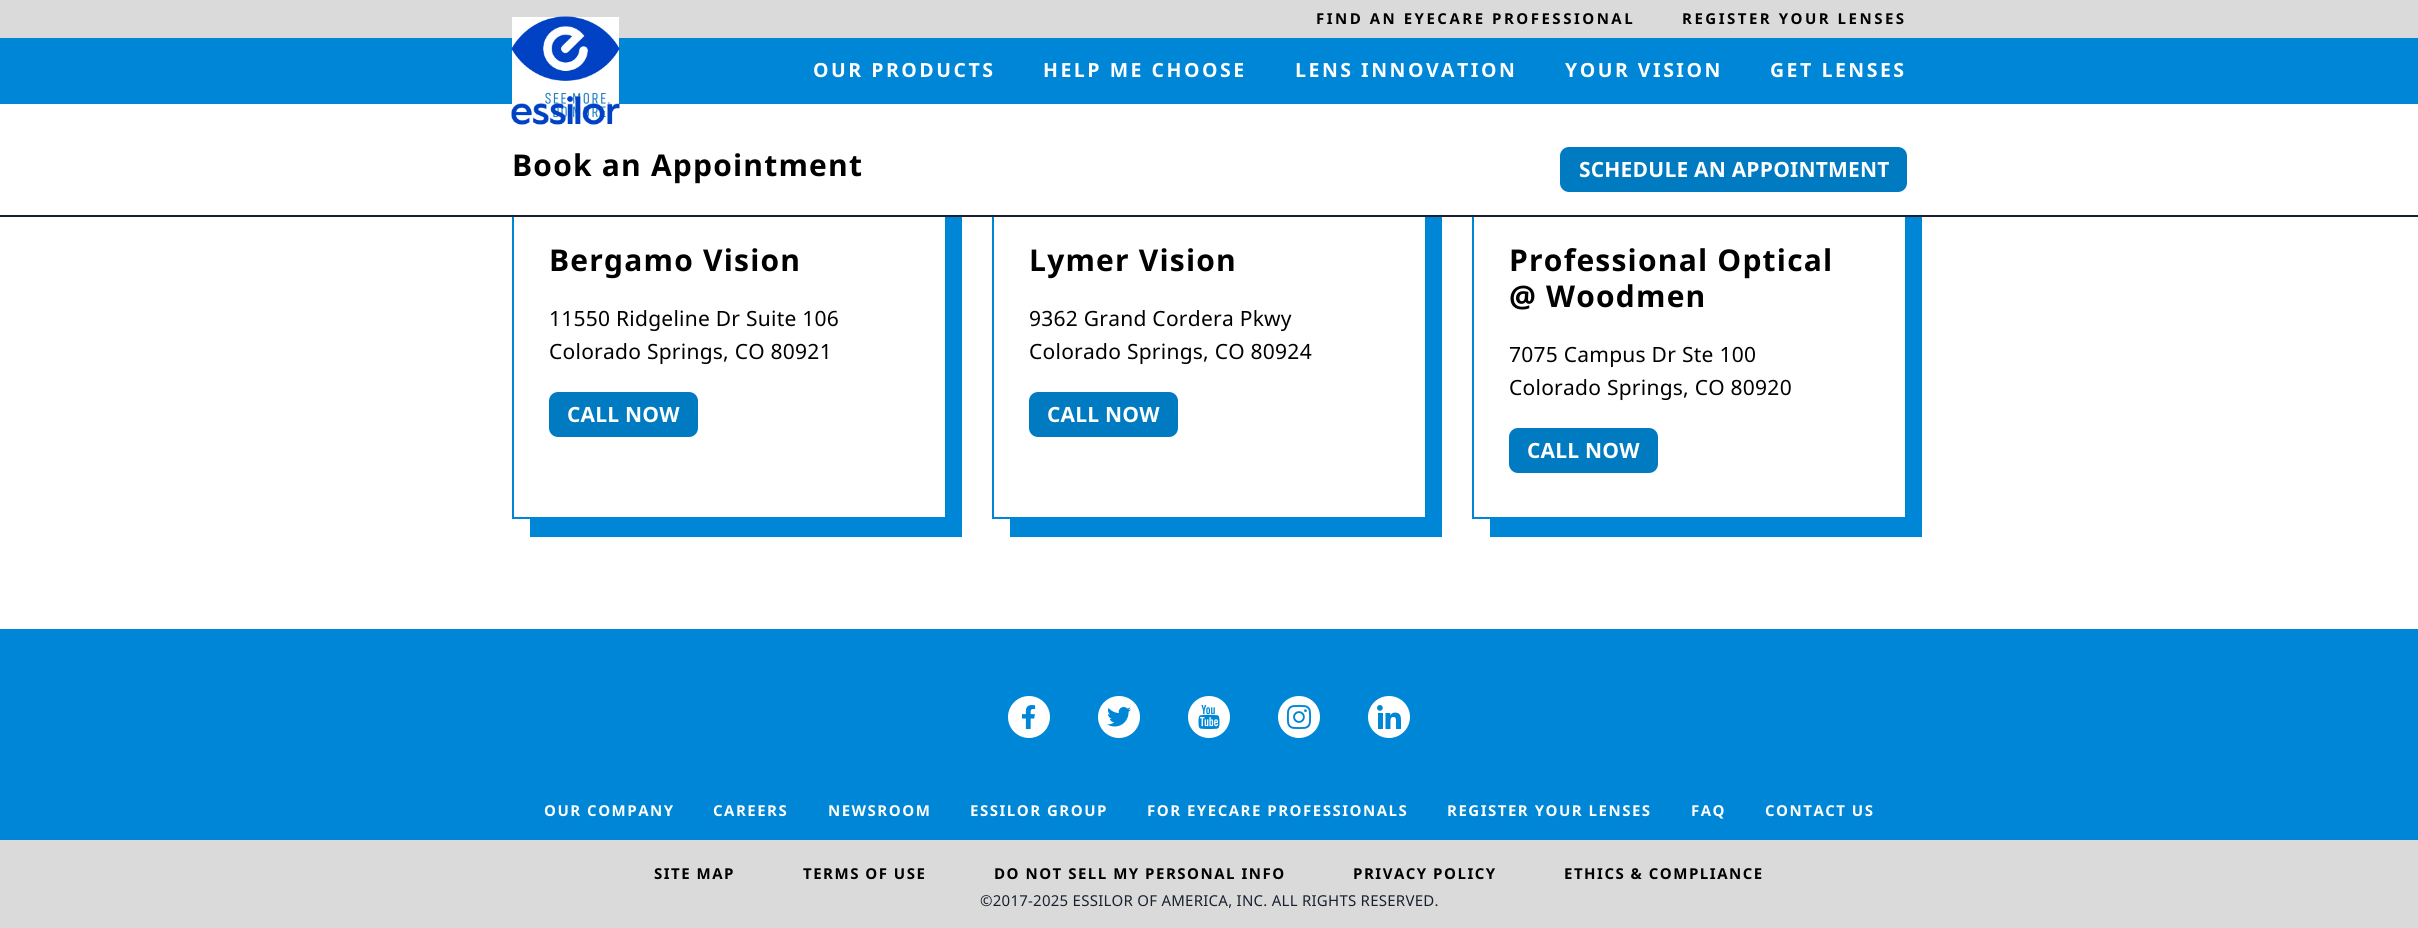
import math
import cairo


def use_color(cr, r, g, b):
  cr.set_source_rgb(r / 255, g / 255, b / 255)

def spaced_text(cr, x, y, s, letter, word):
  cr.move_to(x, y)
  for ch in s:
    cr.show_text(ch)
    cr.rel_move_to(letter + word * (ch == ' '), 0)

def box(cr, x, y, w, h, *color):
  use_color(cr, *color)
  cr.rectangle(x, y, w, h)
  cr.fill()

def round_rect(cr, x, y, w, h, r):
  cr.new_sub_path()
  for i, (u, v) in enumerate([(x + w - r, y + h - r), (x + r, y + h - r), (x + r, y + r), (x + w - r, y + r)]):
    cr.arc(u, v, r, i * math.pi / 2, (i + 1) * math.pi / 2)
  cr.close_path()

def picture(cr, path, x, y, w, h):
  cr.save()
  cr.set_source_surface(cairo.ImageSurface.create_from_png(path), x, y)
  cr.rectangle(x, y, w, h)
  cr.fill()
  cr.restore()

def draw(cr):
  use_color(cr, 255, 255, 255)
  cr.paint()
  box(cr, 0, 0, 2418, 38, 219, 218, 218)
  box(cr, 0, 38, 2418, 66, 0, 134, 214)
  box(cr, 619, 17, 1, 2, 221, 229, 228)
  picture(cr, "img_02.png", 512, 17, 107, 101)
  picture(cr, "img_01.png", 511, 16, 109, 109)
  box(cr, 530, 217, 432, 320, 0, 134, 214)
  box(cr, 530, 217, 415, 300, 255, 255, 255)
  cr.rectangle(513, 196, 433, 322)
  use_color(cr, 0, 134, 214)
  cr.stroke()
  box(cr, 1010, 217, 432, 320, 0, 134, 214)
  box(cr, 1010, 217, 415, 300, 255, 255, 255)
  cr.rectangle(993, 196, 433, 322)
  use_color(cr, 0, 134, 214)
  cr.stroke()
  box(cr, 1490, 217, 432, 320, 0, 134, 214)
  box(cr, 1490, 217, 415, 300, 255, 255, 255)
  cr.rectangle(1473, 196, 433, 322)
  use_color(cr, 0, 134, 214)
  cr.stroke()
  box(cr, 512, 195, 1395, 20, 255, 255, 255)
  box(cr, 0, 215, 2418, 2, 23, 33, 47)
  use_color(cr, 0, 123, 194)
  round_rect(cr, 1560, 147, 347, 45, 9)
  cr.fill()
  round_rect(cr, 549, 392, 149, 45, 9)
  cr.fill()
  round_rect(cr, 1029, 392, 149, 45, 9)
  cr.fill()
  round_rect(cr, 1509, 428, 149, 45, 9)
  cr.fill()
  box(cr, 0, 629, 2418, 211, 0, 134, 214)
  picture(cr, "img_03.png", 1008, 696, 42, 42)
  picture(cr, "img_04.png", 1098, 696, 42, 42)
  picture(cr, "img_05.png", 1188, 696, 42, 42)
  picture(cr, "img_06.png", 1278, 696, 42, 42)
  picture(cr, "img_07.png", 1368, 696, 42, 42)
  box(cr, 0, 840, 2418, 88, 219, 218, 218)
  cr.select_font_face("Noto Sans", cairo.FONT_SLANT_NORMAL, cairo.FONT_WEIGHT_BOLD)
  cr.set_font_size(15)
  use_color(cr, 0, 0, 0)
  spaced_text(cr, 1316, 24, "FIND AN EYECARE PROFESSIONAL", 2.5, 0)
  spaced_text(cr, 1682, 24, "REGISTER YOUR LENSES", 2.5, 0)
  cr.set_font_size(19.5)
  use_color(cr, 255, 255, 255)
  spaced_text(cr, 813, 77, "OUR PRODUCTS", 2.5, 0)
  spaced_text(cr, 1043, 77, "HELP ME CHOOSE", 2.5, 0)
  spaced_text(cr, 1295, 77, "LENS INNOVATION", 2.5, 0)
  spaced_text(cr, 1565, 77, "YOUR VISION", 2.5, 0)
  spaced_text(cr, 1770, 77, "GET LENSES", 2.5, 0)
  cr.set_font_size(30)
  use_color(cr, 0, 0, 0)
  spaced_text(cr, 512, 176, "Book an Appointment", 1.2, 0)
  cr.set_font_size(21)
  use_color(cr, 255, 255, 255)
  spaced_text(cr, 1579, 177, "SCHEDULE AN APPOINTMENT", 0.2, 0)
  cr.set_font_size(30)
  use_color(cr, 0, 0, 0)
  spaced_text(cr, 549, 271, "Bergamo Vision", 1.2, 0)
  cr.select_font_face("Noto Sans")
  cr.set_font_size(21)
  spaced_text(cr, 549, 326, "11550 Ridgeline Dr", 0.25, 0)
  spaced_text(cr, 746, 326, "Suite 106", 0.25, 0)
  spaced_text(cr, 549, 359, "Colorado Springs, CO 80921", 0.25, 0)
  cr.select_font_face("Noto Sans", cairo.FONT_SLANT_NORMAL, cairo.FONT_WEIGHT_BOLD)
  use_color(cr, 255, 255, 255)
  spaced_text(cr, 567, 422, "CALL NOW", 0.2, 0)
  cr.set_font_size(30)
  use_color(cr, 0, 0, 0)
  spaced_text(cr, 1029, 271, "Lymer Vision", 1.2, 0)
  cr.select_font_face("Noto Sans")
  cr.set_font_size(21)
  spaced_text(cr, 1029, 326, "9362 Grand Cordera Pkwy", 0.25, 0)
  spaced_text(cr, 1029, 359, "Colorado Springs, CO 80924", 0.25, 0)
  cr.select_font_face("Noto Sans", cairo.FONT_SLANT_NORMAL, cairo.FONT_WEIGHT_BOLD)
  use_color(cr, 255, 255, 255)
  spaced_text(cr, 1047, 422, "CALL NOW", 0.2, 0)
  cr.set_font_size(30)
  use_color(cr, 0, 0, 0)
  spaced_text(cr, 1509, 271, "Professional Optical", 1.2, 0)
  spaced_text(cr, 1509, 307, "@ Woodmen", 1.2, 0)
  cr.select_font_face("Noto Sans")
  cr.set_font_size(21)
  spaced_text(cr, 1509, 362, "7075 Campus Dr", 0.25, 0)
  spaced_text(cr, 1682, 362, "Ste 100", 0.25, 0)
  spaced_text(cr, 1509, 395, "Colorado Springs, CO 80920", 0.25, 0)
  cr.select_font_face("Noto Sans", cairo.FONT_SLANT_NORMAL, cairo.FONT_WEIGHT_BOLD)
  use_color(cr, 255, 255, 255)
  spaced_text(cr, 1527, 458, "CALL NOW", 0.2, 0)
  cr.set_font_size(15)
  spaced_text(cr, 544, 816, "OUR COMPANY", 1.5, 0)
  spaced_text(cr, 713, 816, "CAREERS", 1.5, 0)
  spaced_text(cr, 828, 816, "NEWSROOM", 1.5, 0)
  spaced_text(cr, 970, 816, "ESSILOR GROUP", 1.5, 0)
  spaced_text(cr, 1147, 816, "FOR EYECARE PROFESSIONALS", 1.5, 0)
  spaced_text(cr, 1447, 816, "REGISTER YOUR LENSES", 1.5, 0)
  spaced_text(cr, 1691, 816, "FAQ", 1.5, 0)
  spaced_text(cr, 1765, 816, "CONTACT US", 1.5, 0)
  use_color(cr, 0, 0, 0)
  spaced_text(cr, 654, 879, "SITE MAP", 1.5, 0)
  spaced_text(cr, 803, 879, "TERMS OF USE", 1.5, 0)
  spaced_text(cr, 994, 879, "DO NOT SELL MY PERSONAL INFO", 1.5, 0)
  spaced_text(cr, 1353, 879, "PRIVACY POLICY", 1.5, 0)
  spaced_text(cr, 1564, 879, "ETHICS & COMPLIANCE", 1.5, 0)
  cr.select_font_face("Noto Sans")
  use_color(cr, 23, 33, 47)
  spaced_text(cr, 980, 906, "©2017-2025 ESSILOR OF AMERICA, INC. ALL RIGHTS RESERVED.", 0.25, 0)


surface = cairo.ImageSurface(cairo.FORMAT_RGB24, 2418, 928)
cr = cairo.Context(surface)
options = cairo.FontOptions()
options.set_hint_metrics(cairo.HINT_METRICS_OFF)
options.set_hint_style(cairo.HINT_STYLE_NONE)
cr.set_font_options(options)
cr.set_miter_limit(4)
draw(cr)
surface.write_to_png("out.png")
